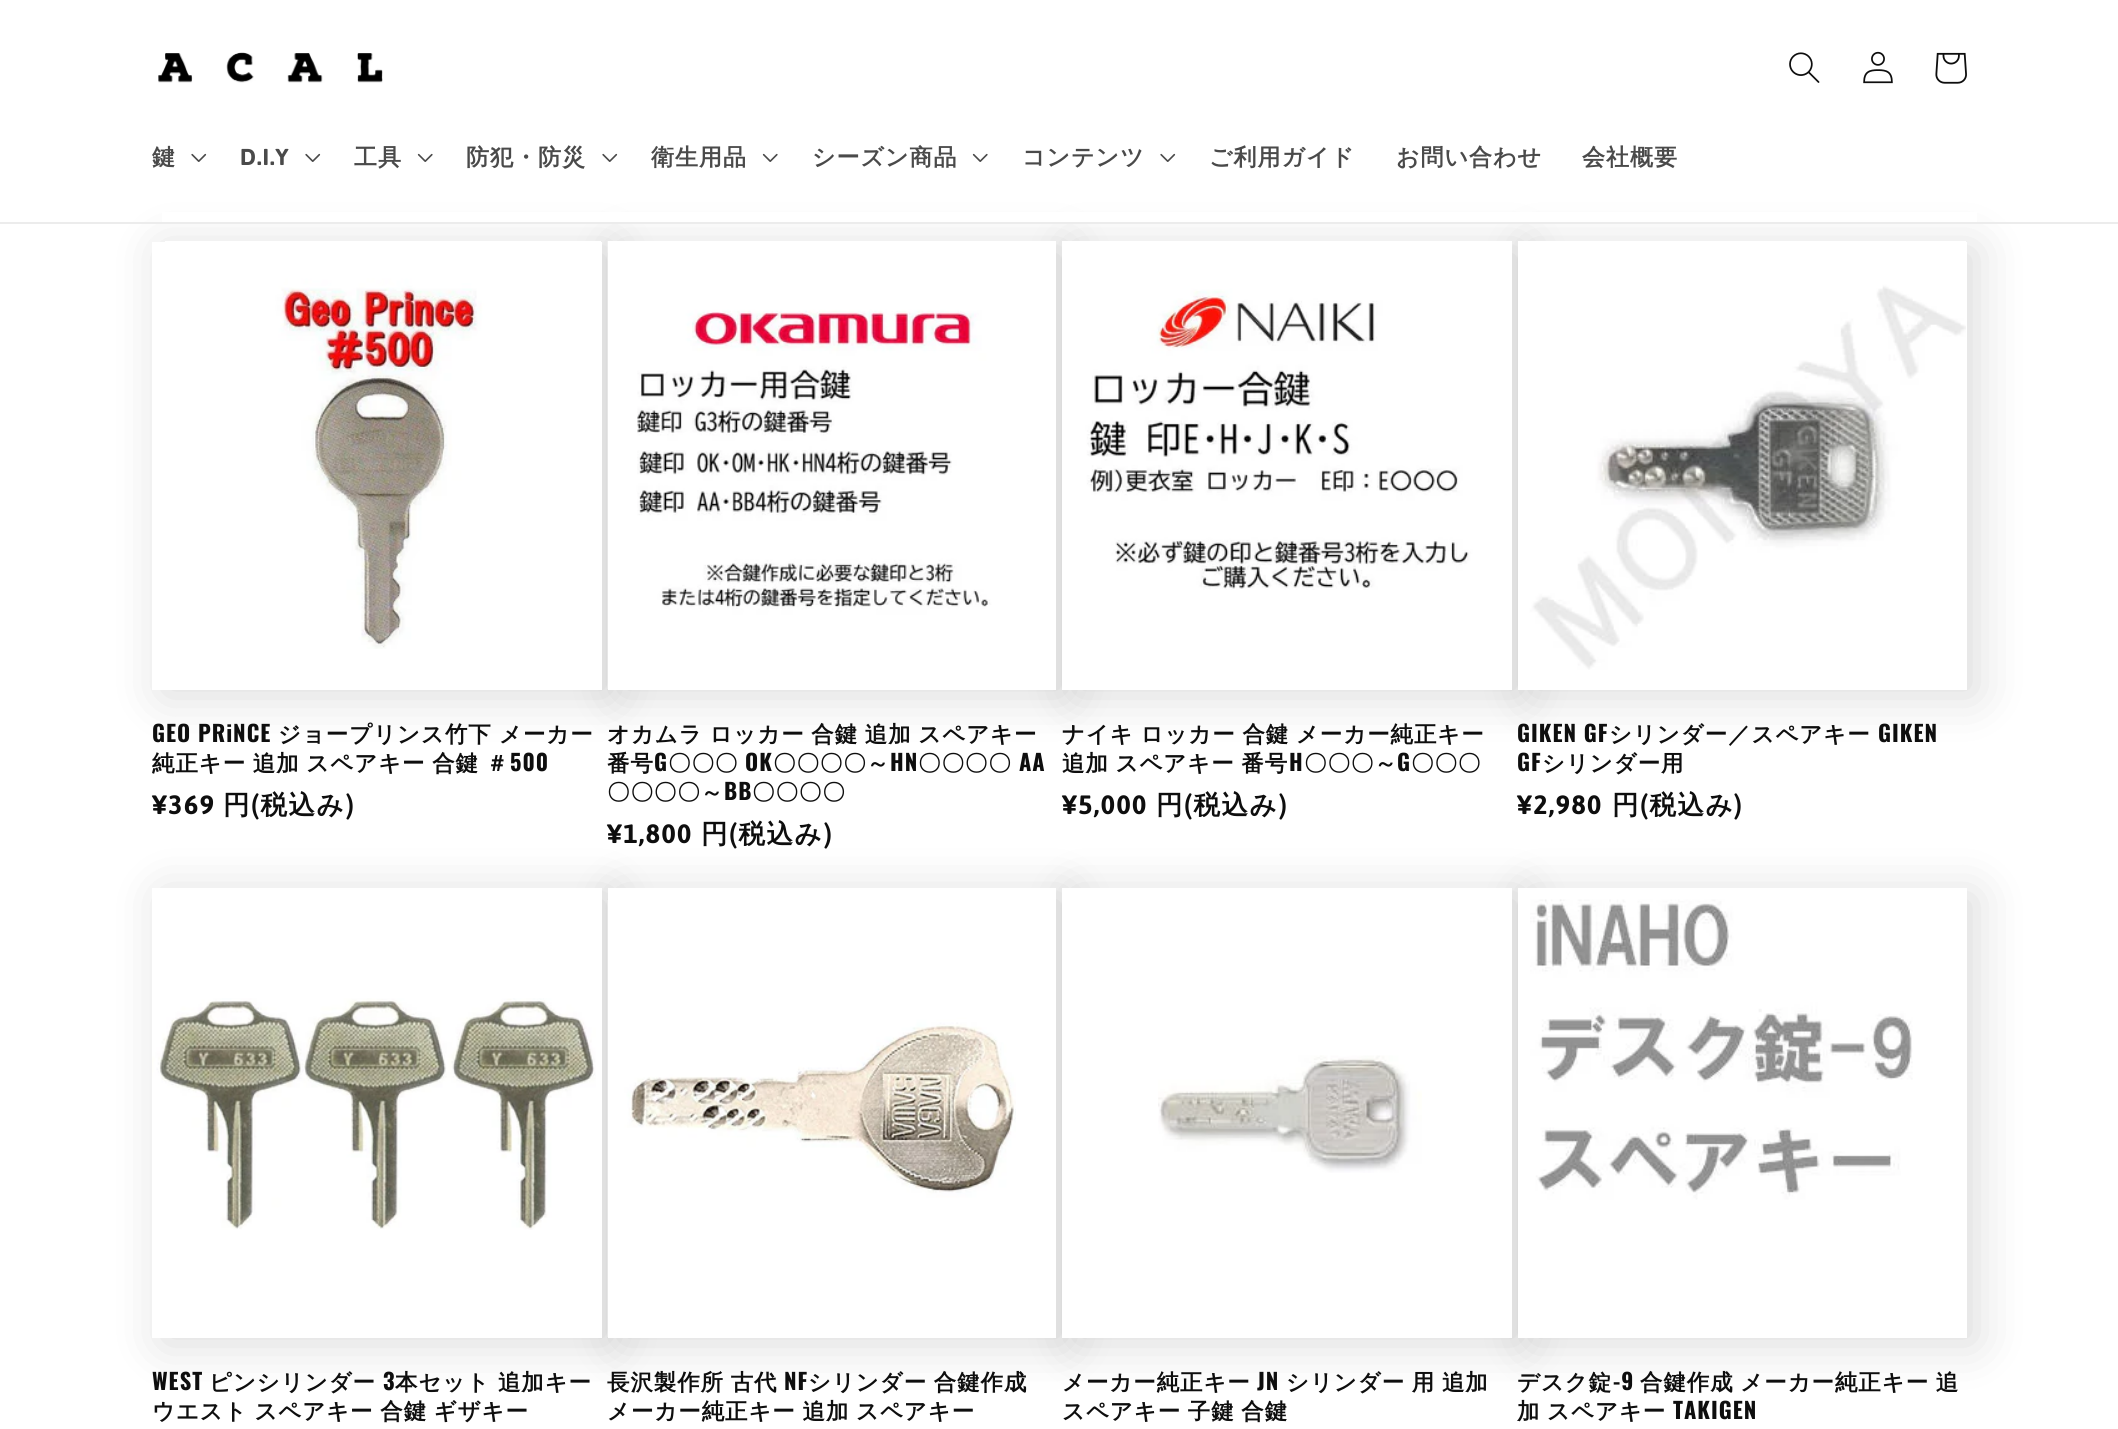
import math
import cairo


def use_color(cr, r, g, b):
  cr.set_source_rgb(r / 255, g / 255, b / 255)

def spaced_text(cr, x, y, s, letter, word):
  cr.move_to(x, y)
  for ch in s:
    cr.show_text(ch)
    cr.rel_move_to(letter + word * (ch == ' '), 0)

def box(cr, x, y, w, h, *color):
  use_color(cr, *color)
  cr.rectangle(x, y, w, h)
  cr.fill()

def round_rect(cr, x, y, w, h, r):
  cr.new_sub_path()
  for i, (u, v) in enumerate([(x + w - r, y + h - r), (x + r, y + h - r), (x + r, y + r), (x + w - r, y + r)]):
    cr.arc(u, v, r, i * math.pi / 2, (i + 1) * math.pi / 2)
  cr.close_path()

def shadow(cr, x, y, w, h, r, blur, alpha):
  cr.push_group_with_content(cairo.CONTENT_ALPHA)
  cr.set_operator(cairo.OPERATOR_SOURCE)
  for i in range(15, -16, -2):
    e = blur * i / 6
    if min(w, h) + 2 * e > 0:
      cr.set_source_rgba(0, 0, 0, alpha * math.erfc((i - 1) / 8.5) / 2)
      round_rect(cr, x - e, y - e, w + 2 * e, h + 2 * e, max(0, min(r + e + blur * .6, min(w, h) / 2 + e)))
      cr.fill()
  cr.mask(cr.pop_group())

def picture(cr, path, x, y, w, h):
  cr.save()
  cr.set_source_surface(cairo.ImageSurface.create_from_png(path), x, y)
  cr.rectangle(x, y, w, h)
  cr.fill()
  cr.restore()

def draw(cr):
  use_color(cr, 255, 255, 255)
  cr.paint()
  use_color(cr, 14, 14, 14)
  shadow(cr, 162, 248, 450, 448, 0, 25, 0.15)
  shadow(cr, 618, 248, 449, 448, 0, 25, 0.15)
  shadow(cr, 1073, 248, 450, 448, 0, 25, 0.15)
  shadow(cr, 1529, 248, 448, 448, 0, 25, 0.15)
  box(cr, 162, 212, 1815, 10, 255, 255, 255)
  box(cr, 0, 222, 2118, 2, 236, 236, 236)
  picture(cr, "img_01.png", 158, 52, 225, 31)
  picture(cr, "img_02.png", 1789, 52, 31, 31)
  picture(cr, "img_03.png", 1863, 51, 30, 33)
  picture(cr, "img_04.png", 1935, 52, 32, 32)
  picture(cr, "img_05.png", 191, 153, 16, 9)
  picture(cr, "img_05.png", 305, 153, 16, 9)
  picture(cr, "img_06.png", 417, 153, 16, 9)
  picture(cr, "img_05.png", 602, 153, 16, 9)
  picture(cr, "img_06.png", 762, 153, 16, 9)
  picture(cr, "img_06.png", 972, 153, 16, 9)
  picture(cr, "img_05.png", 1160, 153, 16, 9)
  box(cr, 152, 242, 450, 448, 255, 255, 255)
  picture(cr, "img_07.png", 165, 241, 436, 408)
  box(cr, 608, 689, 448, 1, 255, 255, 255)
  picture(cr, "img_08.png", 607, 241, 449, 448)
  box(cr, 1062, 590, 450, 100, 255, 255, 255)
  picture(cr, "img_09.png", 1062, 241, 450, 349)
  box(cr, 1518, 242, 449, 448, 255, 255, 255)
  picture(cr, "img_10.png", 1518, 241, 448, 429)
  use_color(cr, 14, 14, 14)
  shadow(cr, 162, 894, 450, 450, 0, 25, 0.15)
  shadow(cr, 618, 894, 449, 450, 0, 25, 0.15)
  box(cr, 152, 888, 450, 450, 255, 255, 255)
  picture(cr, "img_11.png", 152, 998, 444, 232)
  use_color(cr, 14, 14, 14)
  shadow(cr, 1073, 894, 450, 450, 0, 25, 0.15)
  box(cr, 608, 888, 448, 450, 255, 255, 255)
  picture(cr, "img_12.png", 607, 900, 409, 437)
  use_color(cr, 14, 14, 14)
  shadow(cr, 1529, 894, 448, 450, 0, 25, 0.15)
  box(cr, 1062, 888, 450, 450, 255, 255, 255)
  picture(cr, "img_13.png", 1158, 1055, 264, 118)
  box(cr, 1518, 888, 449, 450, 255, 255, 255)
  picture(cr, "img_14.png", 1530, 899, 383, 301)
  cr.select_font_face("WenQuanYi Zen Hei", cairo.FONT_SLANT_NORMAL, cairo.FONT_WEIGHT_BOLD)
  cr.set_font_size(23)
  use_color(cr, 74, 74, 74)
  spaced_text(cr, 152, 165, "鍵", 1, 0)
  cr.select_font_face("Asap", cairo.FONT_SLANT_NORMAL, cairo.FONT_WEIGHT_BOLD)
  spaced_text(cr, 240, 165, "D.I.Y", 1, 0)
  cr.select_font_face("WenQuanYi Zen Hei", cairo.FONT_SLANT_NORMAL, cairo.FONT_WEIGHT_BOLD)
  spaced_text(cr, 354, 165, "工具", 1, 0)
  spaced_text(cr, 466, 165, "防犯・防災", 1, 0)
  spaced_text(cr, 651, 165, "衛生用品", 1, 0)
  spaced_text(cr, 812, 165, "シーズン商品", 1, 0)
  spaced_text(cr, 1022, 165, "コンテンツ", 1, 0)
  spaced_text(cr, 1209, 165, "ご利用ガイド", 1, 0)
  spaced_text(cr, 1396, 165, "お問い合わせ", 1, 0)
  spaced_text(cr, 1582, 165, "会社概要", 1, 0)
  cr.select_font_face("Oswald", cairo.FONT_SLANT_NORMAL, cairo.FONT_WEIGHT_BOLD)
  cr.set_font_size(22.4)
  use_color(cr, 14, 14, 14)
  spaced_text(cr, 152, 742, "GEO PRiNCE", 1, 0)
  cr.select_font_face("WenQuanYi Zen Hei", cairo.FONT_SLANT_NORMAL, cairo.FONT_WEIGHT_BOLD)
  spaced_text(cr, 278, 742, "ジョープリンス竹下", 1, 0)
  spaced_text(cr, 499, 742, "メーカー", 1, 0)
  spaced_text(cr, 152, 771, "純正キー 追加 スペアキー 合鍵 ＃", 1, -1)
  cr.select_font_face("Oswald", cairo.FONT_SLANT_NORMAL, cairo.FONT_WEIGHT_BOLD)
  spaced_text(cr, 510, 771, "500", 1, 0)
  cr.select_font_face("WenQuanYi Zen Hei", cairo.FONT_SLANT_NORMAL, cairo.FONT_WEIGHT_BOLD)
  cr.set_font_size(26.5)
  spaced_text(cr, 223, 814, "円 税込み", 1.5, 0)
  cr.select_font_face("Asap", cairo.FONT_SLANT_NORMAL, cairo.FONT_WEIGHT_BOLD)
  spaced_text(cr, 152, 814, "¥369", 1.5, 0)
  spaced_text(cr, 251, 814, "(", 1.5, 0)
  spaced_text(cr, 346, 814, ")", 1.5, 0)
  cr.select_font_face("WenQuanYi Zen Hei", cairo.FONT_SLANT_NORMAL, cairo.FONT_WEIGHT_BOLD)
  cr.set_font_size(22.4)
  spaced_text(cr, 607, 742, "オカムラ ロッカー 合鍵 追加 スペアキー", 1, -1)
  spaced_text(cr, 607, 771, "番号", 1, 0)
  cr.select_font_face("Oswald", cairo.FONT_SLANT_NORMAL, cairo.FONT_WEIGHT_BOLD)
  spaced_text(cr, 654, 771, "G", 1, 0)
  cr.select_font_face("WenQuanYi Zen Hei", cairo.FONT_SLANT_NORMAL, cairo.FONT_WEIGHT_BOLD)
  spaced_text(cr, 668, 771, "〇〇〇", 1, 0)
  cr.select_font_face("Oswald", cairo.FONT_SLANT_NORMAL, cairo.FONT_WEIGHT_BOLD)
  spaced_text(cr, 745, 771, "OK", 1, 0)
  cr.select_font_face("WenQuanYi Zen Hei", cairo.FONT_SLANT_NORMAL, cairo.FONT_WEIGHT_BOLD)
  spaced_text(cr, 773, 771, "〇〇〇〇～", 1, 0)
  cr.select_font_face("Oswald", cairo.FONT_SLANT_NORMAL, cairo.FONT_WEIGHT_BOLD)
  spaced_text(cr, 890, 771, "HN", 1, 0)
  cr.select_font_face("WenQuanYi Zen Hei", cairo.FONT_SLANT_NORMAL, cairo.FONT_WEIGHT_BOLD)
  spaced_text(cr, 918, 771, "〇〇〇〇", 1, 0)
  cr.select_font_face("Oswald", cairo.FONT_SLANT_NORMAL, cairo.FONT_WEIGHT_BOLD)
  spaced_text(cr, 1019, 771, "AA", 1, 0)
  cr.select_font_face("WenQuanYi Zen Hei", cairo.FONT_SLANT_NORMAL, cairo.FONT_WEIGHT_BOLD)
  spaced_text(cr, 607, 800, "〇〇〇〇～", 1, 0)
  cr.select_font_face("Oswald", cairo.FONT_SLANT_NORMAL, cairo.FONT_WEIGHT_BOLD)
  spaced_text(cr, 724, 800, "BB", 1, 0)
  cr.select_font_face("WenQuanYi Zen Hei", cairo.FONT_SLANT_NORMAL, cairo.FONT_WEIGHT_BOLD)
  spaced_text(cr, 752, 800, "〇〇〇〇", 1, 0)
  cr.set_font_size(26.5)
  spaced_text(cr, 701, 843, "円 税込み", 1.5, 0)
  cr.select_font_face("Asap", cairo.FONT_SLANT_NORMAL, cairo.FONT_WEIGHT_BOLD)
  spaced_text(cr, 607, 843, "¥1,800", 1.5, 0)
  spaced_text(cr, 729, 843, "(", 1.5, 0)
  spaced_text(cr, 824, 843, ")", 1.5, 0)
  cr.select_font_face("WenQuanYi Zen Hei", cairo.FONT_SLANT_NORMAL, cairo.FONT_WEIGHT_BOLD)
  cr.set_font_size(22.4)
  spaced_text(cr, 1062, 742, "ナイキ ロッカー 合鍵 メーカー純正キー", 1, -1)
  spaced_text(cr, 1062, 771, "追加 スペアキー 番号", 1, -1)
  cr.select_font_face("Oswald", cairo.FONT_SLANT_NORMAL, cairo.FONT_WEIGHT_BOLD)
  spaced_text(cr, 1289, 771, "H", 1, 0)
  cr.select_font_face("WenQuanYi Zen Hei", cairo.FONT_SLANT_NORMAL, cairo.FONT_WEIGHT_BOLD)
  spaced_text(cr, 1304, 771, "〇〇〇～", 1, 0)
  cr.select_font_face("Oswald", cairo.FONT_SLANT_NORMAL, cairo.FONT_WEIGHT_BOLD)
  spaced_text(cr, 1397, 771, "G", 1, 0)
  cr.select_font_face("WenQuanYi Zen Hei", cairo.FONT_SLANT_NORMAL, cairo.FONT_WEIGHT_BOLD)
  spaced_text(cr, 1411, 771, "〇〇〇", 1, 0)
  cr.set_font_size(26.5)
  spaced_text(cr, 1156, 814, "円 税込み", 1.5, 0)
  cr.select_font_face("Asap", cairo.FONT_SLANT_NORMAL, cairo.FONT_WEIGHT_BOLD)
  spaced_text(cr, 1062, 814, "¥5,000", 1.5, 0)
  spaced_text(cr, 1184, 814, "(", 1.5, 0)
  spaced_text(cr, 1279, 814, ")", 1.5, 0)
  cr.select_font_face("Oswald", cairo.FONT_SLANT_NORMAL, cairo.FONT_WEIGHT_BOLD)
  cr.set_font_size(22.4)
  spaced_text(cr, 1517, 742, "GIKEN GF", 1, 0)
  cr.select_font_face("WenQuanYi Zen Hei", cairo.FONT_SLANT_NORMAL, cairo.FONT_WEIGHT_BOLD)
  spaced_text(cr, 1609, 742, "シリンダー／スペアキー", 1, 0)
  cr.select_font_face("Oswald", cairo.FONT_SLANT_NORMAL, cairo.FONT_WEIGHT_BOLD)
  spaced_text(cr, 1878, 742, "GIKEN", 1, 0)
  spaced_text(cr, 1517, 771, "GF", 1, 0)
  cr.select_font_face("WenQuanYi Zen Hei", cairo.FONT_SLANT_NORMAL, cairo.FONT_WEIGHT_BOLD)
  spaced_text(cr, 1542, 771, "シリンダー用", 1, 0)
  cr.set_font_size(26.5)
  spaced_text(cr, 1612, 814, "円 税込み", 1.5, 0)
  cr.select_font_face("Asap", cairo.FONT_SLANT_NORMAL, cairo.FONT_WEIGHT_BOLD)
  spaced_text(cr, 1517, 814, "¥2,980", 1.5, 0)
  spaced_text(cr, 1640, 814, "(", 1.5, 0)
  spaced_text(cr, 1734, 814, ")", 1.5, 0)
  cr.select_font_face("Oswald", cairo.FONT_SLANT_NORMAL, cairo.FONT_WEIGHT_BOLD)
  cr.set_font_size(22.4)
  spaced_text(cr, 152, 1390, "WEST", 1, 0)
  cr.select_font_face("WenQuanYi Zen Hei", cairo.FONT_SLANT_NORMAL, cairo.FONT_WEIGHT_BOLD)
  spaced_text(cr, 209, 1390, "ピンシリンダー", 1, 0)
  cr.select_font_face("Oswald", cairo.FONT_SLANT_NORMAL, cairo.FONT_WEIGHT_BOLD)
  spaced_text(cr, 383, 1390, "3", 1, 0)
  cr.select_font_face("WenQuanYi Zen Hei", cairo.FONT_SLANT_NORMAL, cairo.FONT_WEIGHT_BOLD)
  spaced_text(cr, 395, 1390, "本セット 追加キー", 1, 0)
  spaced_text(cr, 152, 1419, "ウエスト スペアキー 合鍵 ギザキー", 1, -1)
  spaced_text(cr, 607, 1390, "長沢製作所 古代", 1, -1)
  cr.select_font_face("Oswald", cairo.FONT_SLANT_NORMAL, cairo.FONT_WEIGHT_BOLD)
  spaced_text(cr, 784, 1390, "NF", 1, 0)
  cr.select_font_face("WenQuanYi Zen Hei", cairo.FONT_SLANT_NORMAL, cairo.FONT_WEIGHT_BOLD)
  spaced_text(cr, 808, 1390, "シリンダー 合鍵作成", 1, -1)
  spaced_text(cr, 607, 1419, "メーカー純正キー 追加 スペアキー", 1, -1)
  spaced_text(cr, 1062, 1390, "メーカー純正キー", 1, 0)
  cr.select_font_face("Oswald", cairo.FONT_SLANT_NORMAL, cairo.FONT_WEIGHT_BOLD)
  spaced_text(cr, 1257, 1390, "JN", 1, 0)
  cr.select_font_face("WenQuanYi Zen Hei", cairo.FONT_SLANT_NORMAL, cairo.FONT_WEIGHT_BOLD)
  spaced_text(cr, 1286, 1390, "シリンダー 用 追加", 1, -1)
  spaced_text(cr, 1062, 1419, "スペアキー 子鍵 合鍵", 1, -1)
  spaced_text(cr, 1517, 1390, "デスク錠", 1, 0)
  cr.select_font_face("Oswald", cairo.FONT_SLANT_NORMAL, cairo.FONT_WEIGHT_BOLD)
  spaced_text(cr, 1613, 1390, "-9", 1, 0)
  cr.select_font_face("WenQuanYi Zen Hei", cairo.FONT_SLANT_NORMAL, cairo.FONT_WEIGHT_BOLD)
  spaced_text(cr, 1640, 1390, "合鍵作成 メーカー純正キー 追", 1, -1)
  spaced_text(cr, 1517, 1419, "加 スペアキー", 1, -1)
  cr.select_font_face("Oswald", cairo.FONT_SLANT_NORMAL, cairo.FONT_WEIGHT_BOLD)
  spaced_text(cr, 1673, 1419, "TAKIGEN", 1, 0)


surface = cairo.ImageSurface(cairo.FORMAT_RGB24, 2118, 1429)
cr = cairo.Context(surface)
options = cairo.FontOptions()
options.set_hint_metrics(cairo.HINT_METRICS_OFF)
options.set_hint_style(cairo.HINT_STYLE_NONE)
cr.set_font_options(options)
cr.set_miter_limit(4)
draw(cr)
surface.write_to_png("out.png")
